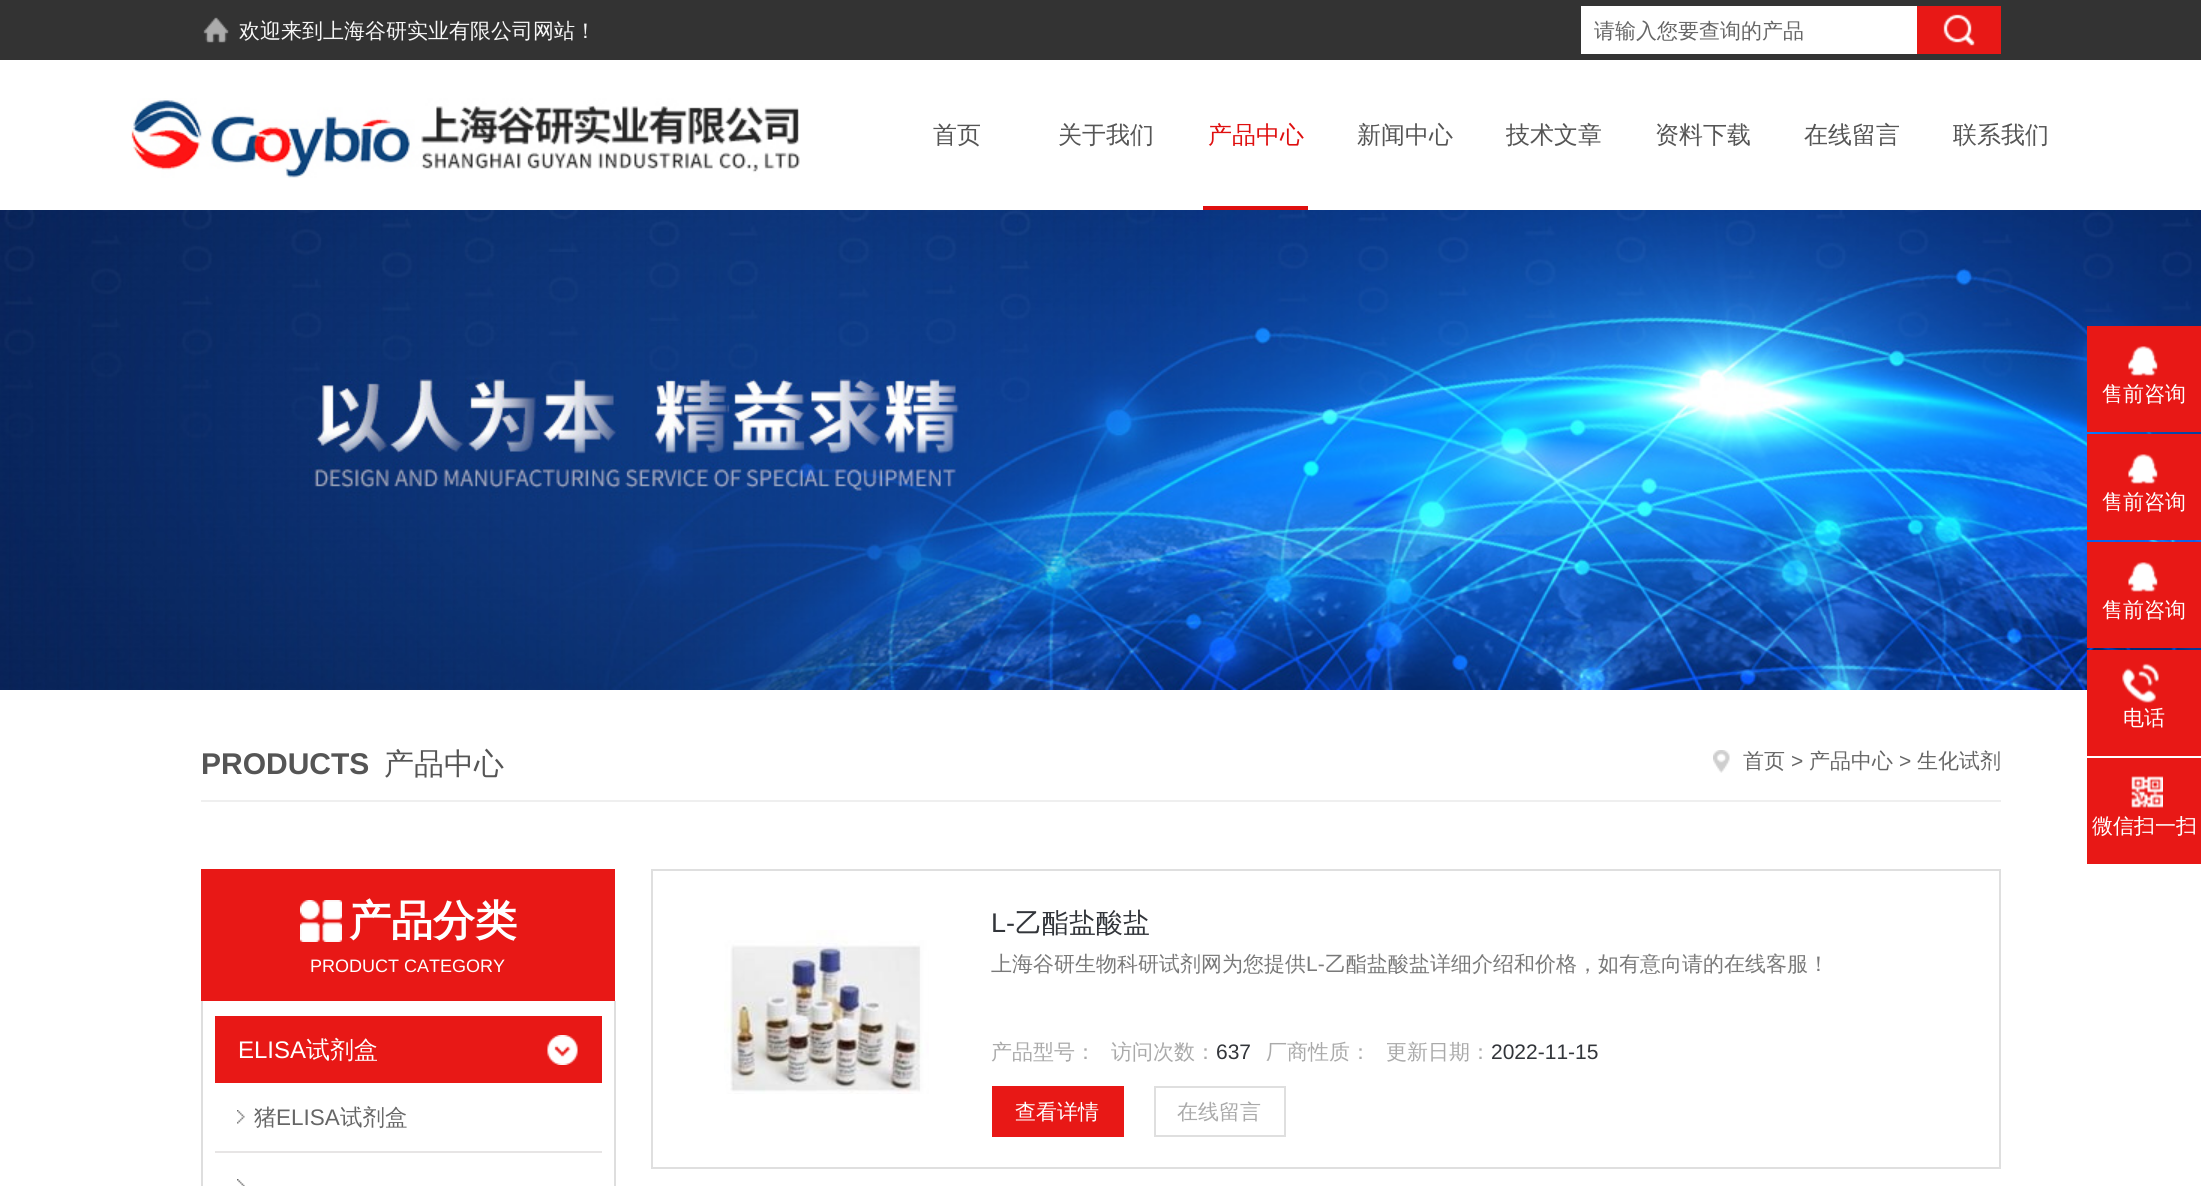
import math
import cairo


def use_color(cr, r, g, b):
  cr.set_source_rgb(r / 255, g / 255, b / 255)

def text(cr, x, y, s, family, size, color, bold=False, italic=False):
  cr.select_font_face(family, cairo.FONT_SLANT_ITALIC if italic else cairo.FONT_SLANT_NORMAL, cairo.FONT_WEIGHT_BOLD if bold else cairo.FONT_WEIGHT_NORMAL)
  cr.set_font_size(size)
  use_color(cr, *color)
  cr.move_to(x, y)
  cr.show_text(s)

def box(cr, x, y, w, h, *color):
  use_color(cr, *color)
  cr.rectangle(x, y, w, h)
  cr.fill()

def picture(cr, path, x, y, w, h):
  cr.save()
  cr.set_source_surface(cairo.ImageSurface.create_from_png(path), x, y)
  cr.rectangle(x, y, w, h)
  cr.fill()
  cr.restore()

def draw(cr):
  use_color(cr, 255, 255, 255)
  cr.paint()
  box(cr, 0, 0, 2201, 60, 51, 51, 51)
  picture(cr, "img_01.png", 203, 17, 26, 26)
  box(cr, 1581, 6, 336, 48, 255, 255, 255)
  box(cr, 1917, 6, 84, 48, 232, 24, 22)
  picture(cr, "img_02.png", 1943, 14, 32, 32)
  picture(cr, "img_03.png", 131, 98, 669, 80)
  box(cr, 1203, 206, 105, 4, 223, 15, 15)
  picture(cr, "img_04.png", 0, 210, 2201, 480)
  box(cr, 2087, 326, 114, 106, 232, 24, 22)
  picture(cr, "img_05.png", 2128, 346, 30, 30)
  box(cr, 2087, 434, 114, 106, 232, 24, 22)
  picture(cr, "img_05.png", 2128, 454, 30, 30)
  box(cr, 2087, 542, 114, 106, 232, 24, 22)
  picture(cr, "img_05.png", 2128, 562, 30, 30)
  box(cr, 2087, 650, 114, 106, 232, 24, 22)
  picture(cr, "img_06.png", 2122, 663, 37, 40)
  box(cr, 2087, 758, 114, 106, 232, 24, 22)
  picture(cr, "img_07.png", 2131, 776, 32, 32)
  box(cr, 201, 800, 1800, 2, 239, 239, 239)
  picture(cr, "img_08.png", 1713, 750, 17, 23)
  box(cr, 201, 869, 414, 132, 232, 24, 22)
  picture(cr, "img_09.png", 300, 900, 42, 42)
  box(cr, 614, 1001, 2, 185, 222, 222, 222)
  box(cr, 201, 1001, 2, 185, 222, 222, 222)
  box(cr, 215, 1016, 387, 67, 232, 24, 22)
  picture(cr, "img_10.png", 547, 1035, 31, 30)
  picture(cr, "img_11.png", 237, 1110, 8, 14)
  picture(cr, "img_12.png", 237, 1179, 8, 7)
  box(cr, 215, 1151, 387, 2, 231, 229, 229)
  cr.rectangle(652, 870, 1348, 298)
  use_color(cr, 223, 223, 223)
  cr.stroke()
  picture(cr, "img_13.png", 724, 930, 205, 164)
  box(cr, 992, 1086, 132, 51, 232, 24, 22)
  cr.rectangle(1155, 1087, 130, 49)
  use_color(cr, 223, 223, 223)
  cr.stroke()
  text(cr, 239, 38, "欢迎来到上海谷研实业有限公司网站！", "WenQuanYi Zen Hei Medium", 21, (247, 247, 247))
  text(cr, 1594, 38, "请输入您要查询的产品", "WenQuanYi Zen Hei Medium", 21, (102, 102, 102))
  text(cr, 933, 143, "首页", "WenQuanYi Zen Hei Medium", 24, (85, 85, 85))
  text(cr, 1058, 143, "关于我们", "WenQuanYi Zen Hei Medium", 24, (85, 85, 85))
  text(cr, 1208, 143, "产品中心", "WenQuanYi Zen Hei Medium", 24, (223, 15, 15))
  text(cr, 1357, 143, "新闻中心", "WenQuanYi Zen Hei Medium", 24, (85, 85, 85))
  text(cr, 1506, 143, "技术文章", "WenQuanYi Zen Hei Medium", 24, (85, 85, 85))
  text(cr, 1655, 143, "资料下载", "WenQuanYi Zen Hei Medium", 24, (85, 85, 85))
  text(cr, 1804, 143, "在线留言", "WenQuanYi Zen Hei Medium", 24, (85, 85, 85))
  text(cr, 1953, 143, "联系我们", "WenQuanYi Zen Hei Medium", 24, (85, 85, 85))
  text(cr, 2102, 401, "售前咨询", "WenQuanYi Zen Hei Medium", 21, (255, 255, 255))
  text(cr, 2102, 509, "售前咨询", "WenQuanYi Zen Hei Medium", 21, (255, 255, 255))
  text(cr, 2102, 617, "售前咨询", "WenQuanYi Zen Hei Medium", 21, (255, 255, 255))
  text(cr, 2123, 725, "电话", "WenQuanYi Zen Hei Medium", 21, (255, 255, 255))
  text(cr, 2092, 833, "微信扫一扫", "WenQuanYi Zen Hei Medium", 21, (255, 255, 255))
  text(cr, 201, 774, "PRODUCTS", "Liberation Sans", 30, (85, 85, 85), bold=True)
  text(cr, 384, 774, "产品中心", "WenQuanYi Zen Hei Medium", 30, (85, 85, 85))
  text(cr, 1743, 768, "首页", "WenQuanYi Zen Hei Medium", 21, (102, 102, 102))
  text(cr, 1791, 768, ">", "Liberation Sans", 21, (102, 102, 102))
  text(cr, 1809, 768, "产品中心", "WenQuanYi Zen Hei Medium", 21, (102, 102, 102))
  text(cr, 1899, 768, ">", "Liberation Sans", 21, (102, 102, 102))
  text(cr, 1917, 768, "生化试剂", "WenQuanYi Zen Hei Medium", 21, (102, 102, 102))
  text(cr, 349, 935, "产品分类", "WenQuanYi Zen Hei", 42, (255, 255, 255), bold=True)
  text(cr, 310, 972, "PRODUCT CATEGORY", "Liberation Sans", 18, (255, 255, 255))
  text(cr, 238, 1058, "ELISA", "Liberation Sans", 24, (255, 255, 255))
  text(cr, 306, 1058, "试剂盒", "WenQuanYi Zen Hei Medium", 24, (255, 255, 255))
  text(cr, 254, 1125, "猪", "WenQuanYi Zen Hei Medium", 22.5, (102, 102, 102))
  text(cr, 276, 1125, "ELISA", "Liberation Sans", 22.5, (102, 102, 102))
  text(cr, 340, 1125, "试剂盒", "WenQuanYi Zen Hei Medium", 22.5, (102, 102, 102))
  text(cr, 991, 932, "L-", "Liberation Sans", 27, (50, 53, 58))
  text(cr, 1015, 932, "乙酯盐酸盐", "WenQuanYi Zen Hei Medium", 27, (50, 53, 58))
  text(cr, 991, 971, "上海谷研生物科研试剂网为您提供", "WenQuanYi Zen Hei Medium", 21, (121, 121, 121))
  text(cr, 1306, 971, "L-", "Liberation Sans", 21, (121, 121, 121))
  text(cr, 1325, 971, "乙酯盐酸盐详细介绍和价格，如有意向请的在线客服！", "WenQuanYi Zen Hei Medium", 21, (121, 121, 121))
  text(cr, 991, 1059, "产品型号：", "WenQuanYi Zen Hei Medium", 21, (170, 170, 170))
  text(cr, 1111, 1059, "访问次数：", "WenQuanYi Zen Hei Medium", 21, (170, 170, 170))
  text(cr, 1216, 1059, "637", "Liberation Sans", 21, (50, 53, 58))
  text(cr, 1266, 1059, "厂商性质：", "WenQuanYi Zen Hei Medium", 21, (170, 170, 170))
  text(cr, 1386, 1059, "更新日期：", "WenQuanYi Zen Hei Medium", 21, (170, 170, 170))
  text(cr, 1491, 1059, "2022-11-15", "Liberation Sans", 21, (50, 53, 58))
  text(cr, 1015, 1119, "查看详情", "WenQuanYi Zen Hei Medium", 21, (255, 255, 255))
  text(cr, 1177, 1119, "在线留言", "WenQuanYi Zen Hei Medium", 21, (170, 170, 170))


surface = cairo.ImageSurface(cairo.FORMAT_RGB24, 2201, 1186)
cr = cairo.Context(surface)
options = cairo.FontOptions()
options.set_hint_metrics(cairo.HINT_METRICS_OFF)
options.set_hint_style(cairo.HINT_STYLE_NONE)
cr.set_font_options(options)
cr.set_miter_limit(4)
draw(cr)
surface.write_to_png("out.png")
